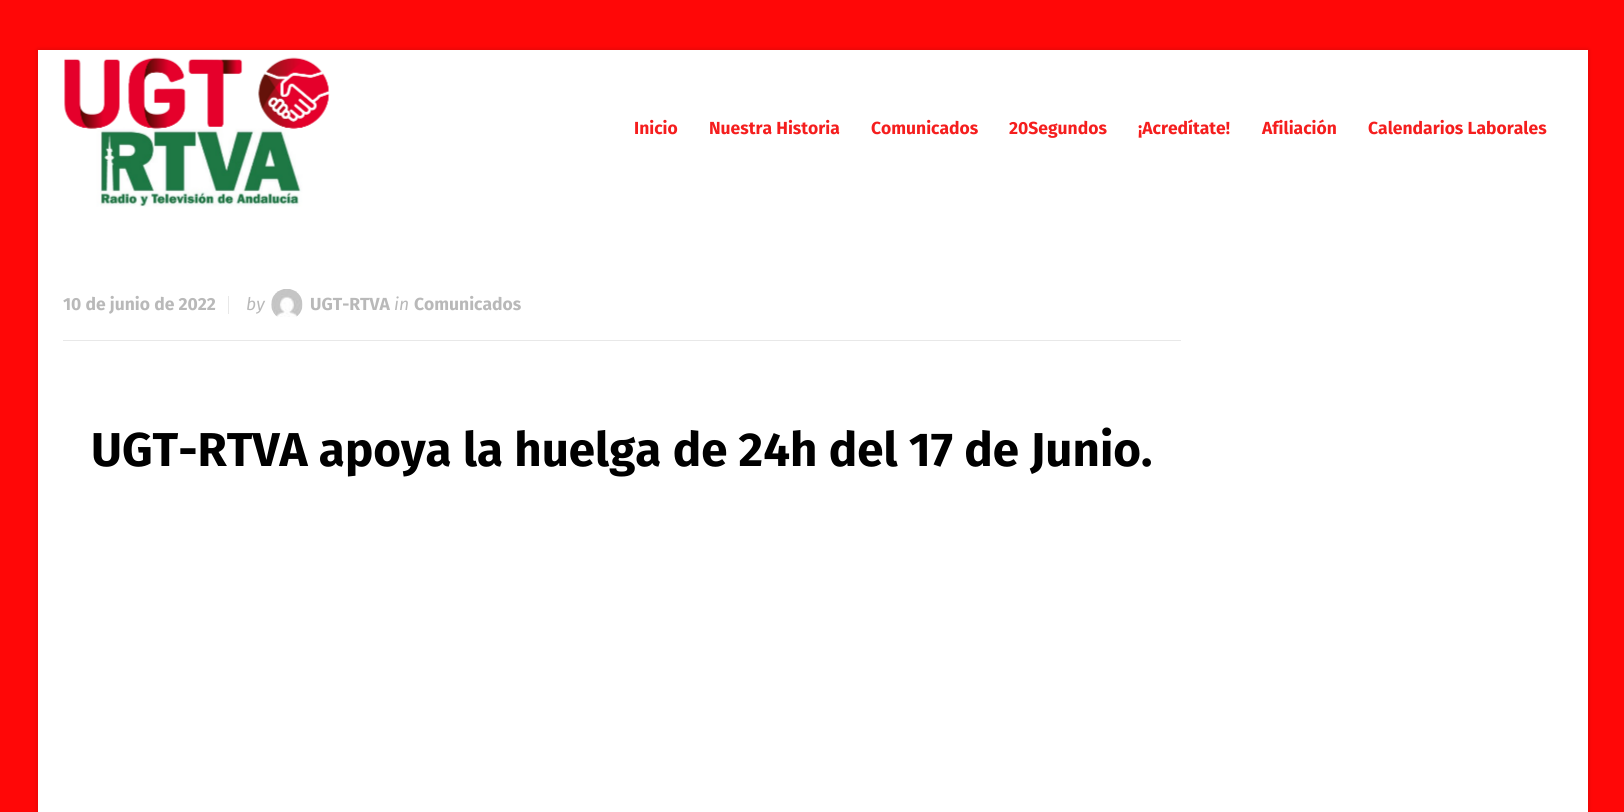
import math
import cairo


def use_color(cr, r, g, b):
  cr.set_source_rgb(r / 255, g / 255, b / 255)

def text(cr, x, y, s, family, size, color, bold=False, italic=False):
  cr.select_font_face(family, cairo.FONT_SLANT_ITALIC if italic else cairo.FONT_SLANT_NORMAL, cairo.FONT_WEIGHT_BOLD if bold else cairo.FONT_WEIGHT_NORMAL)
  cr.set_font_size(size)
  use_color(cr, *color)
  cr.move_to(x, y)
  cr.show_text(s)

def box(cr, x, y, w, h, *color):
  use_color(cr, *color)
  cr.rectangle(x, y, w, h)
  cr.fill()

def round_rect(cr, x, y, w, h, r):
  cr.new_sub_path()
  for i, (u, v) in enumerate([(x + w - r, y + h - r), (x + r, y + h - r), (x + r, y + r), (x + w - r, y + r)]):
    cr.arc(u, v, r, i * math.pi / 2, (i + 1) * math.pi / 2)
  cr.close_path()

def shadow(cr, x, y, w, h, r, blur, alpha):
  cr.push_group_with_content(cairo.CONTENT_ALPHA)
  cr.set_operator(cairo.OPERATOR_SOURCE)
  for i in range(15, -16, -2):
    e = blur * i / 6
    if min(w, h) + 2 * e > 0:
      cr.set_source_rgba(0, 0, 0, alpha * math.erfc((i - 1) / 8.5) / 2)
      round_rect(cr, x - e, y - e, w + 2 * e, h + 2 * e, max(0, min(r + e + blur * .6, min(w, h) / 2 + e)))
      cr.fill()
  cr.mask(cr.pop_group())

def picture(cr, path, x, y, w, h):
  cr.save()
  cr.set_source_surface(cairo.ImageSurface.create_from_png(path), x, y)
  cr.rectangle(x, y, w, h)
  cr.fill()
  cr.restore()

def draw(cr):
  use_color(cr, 255, 7, 7)
  cr.paint()
  use_color(cr, 0, 0, 0)
  shadow(cr, 38, 50, 1550, 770, 0, 2.5, 0.15)
  box(cr, 38, 50, 1550, 762, 255, 255, 255)
  picture(cr, "img_01.png", 64, 57, 266, 150)
  box(cr, 63, 340, 1118, 1, 232, 232, 232)
  box(cr, 228, 296, 1, 18, 232, 232, 232)
  picture(cr, "img_02.png", 271, 289, 32, 28)
  text(cr, 634, 134, "Inicio", "Fira Sans", 17.5, (245, 30, 30), bold=True)
  text(cr, 709, 134, "Nuestra Historia", "Fira Sans", 17.5, (245, 30, 30), bold=True)
  text(cr, 871, 134, "Comunicados", "Fira Sans", 17.5, (245, 30, 30), bold=True)
  text(cr, 1009, 134, "20Segundos", "Fira Sans", 17.5, (245, 30, 30), bold=True)
  text(cr, 1138, 134, "¡Acredítate!", "Fira Sans", 17.5, (245, 30, 30), bold=True)
  text(cr, 1262, 134, "Afiliación", "Fira Sans", 17.5, (245, 30, 30), bold=True)
  text(cr, 1368, 134, "Calendarios Laborales", "Fira Sans", 17.5, (245, 30, 30), bold=True)
  text(cr, 63, 310, "10 de junio de 2022", "Fira Sans", 17.5, (185, 185, 185), bold=True)
  text(cr, 246, 310, "by", "Fira Sans", 17.5, (185, 185, 185), italic=True)
  text(cr, 310, 310, "UGT-RTVA", "Fira Sans", 17.5, (185, 185, 185), bold=True)
  text(cr, 394, 310, "in", "Fira Sans", 17.5, (185, 185, 185), italic=True)
  text(cr, 414, 310, "Comunicados", "Fira Sans", 17.5, (185, 185, 185), bold=True)
  text(cr, 91, 466, "UGT-RTVA apoya la huelga de 24h del 17 de Junio.", "Fira Sans", 47.5, (0, 0, 0), bold=True)


surface = cairo.ImageSurface(cairo.FORMAT_RGB24, 1624, 812)
cr = cairo.Context(surface)
options = cairo.FontOptions()
options.set_hint_metrics(cairo.HINT_METRICS_OFF)
options.set_hint_style(cairo.HINT_STYLE_NONE)
cr.set_font_options(options)
cr.set_miter_limit(4)
draw(cr)
surface.write_to_png("out.png")
